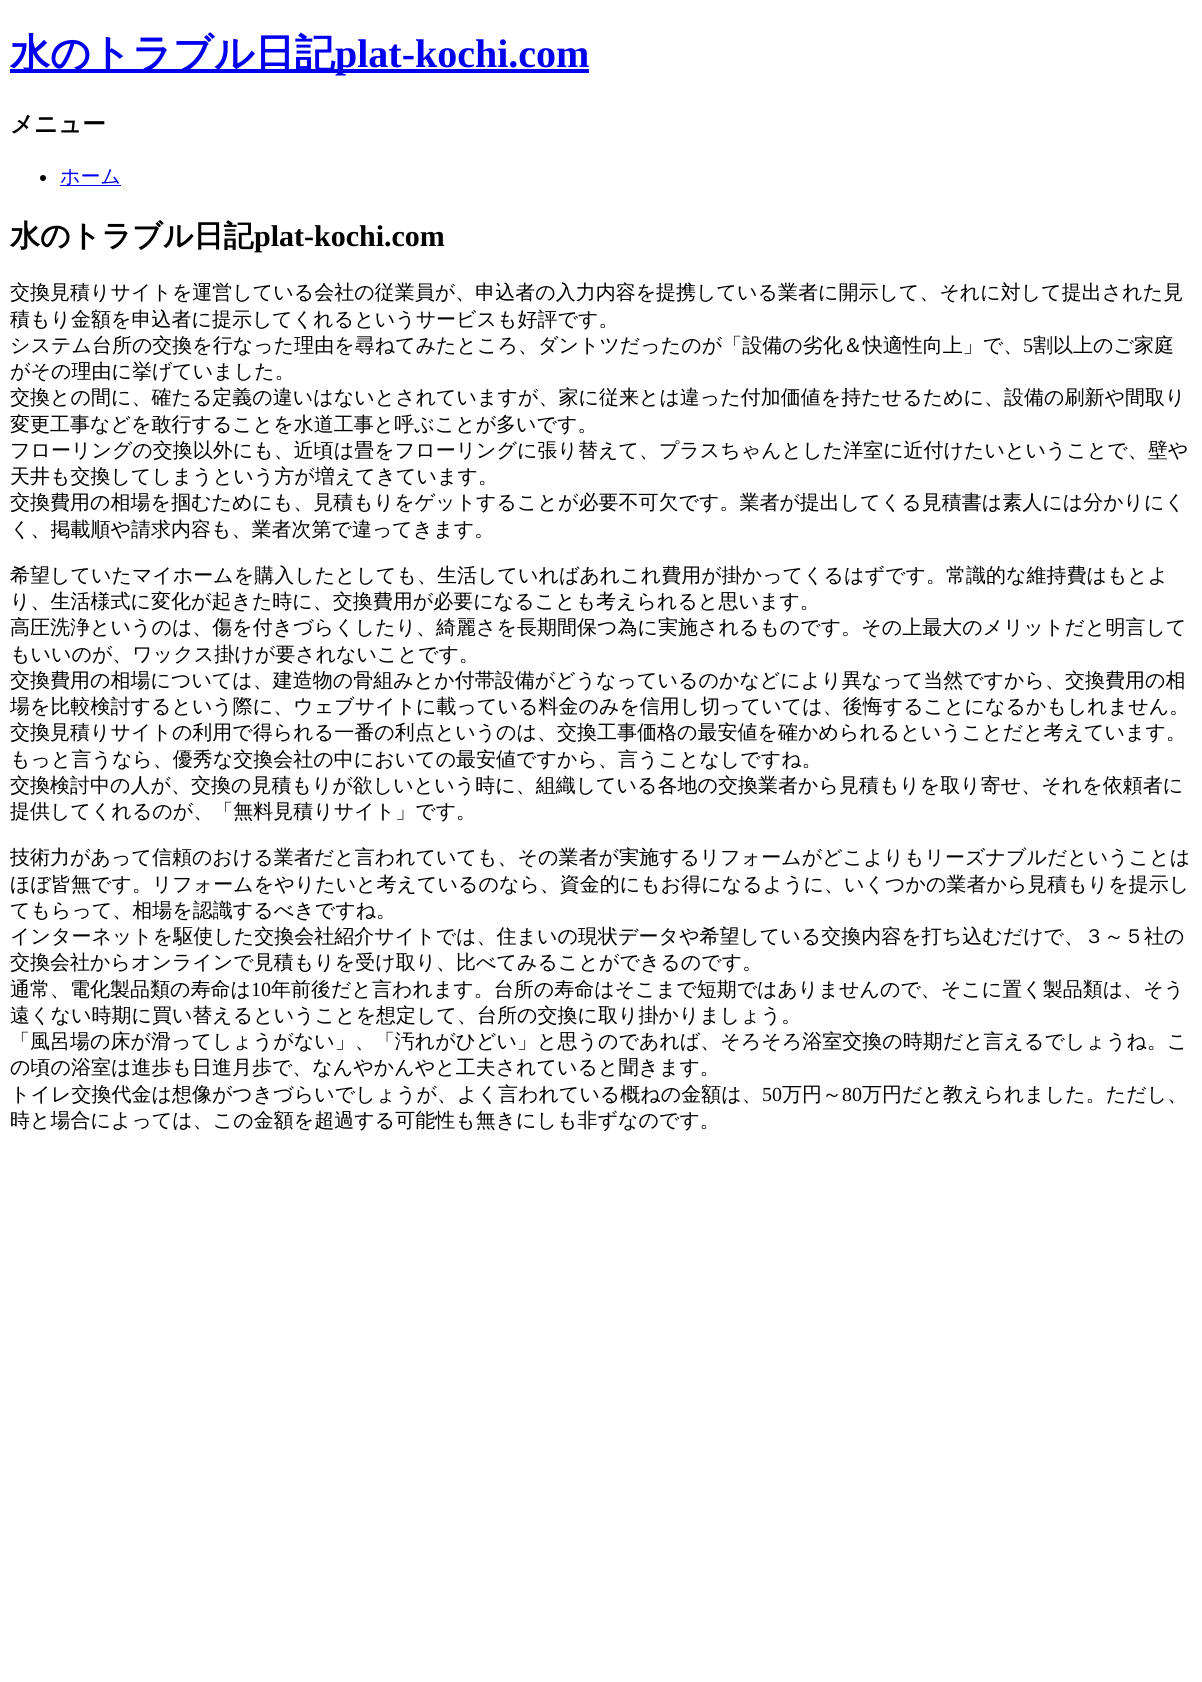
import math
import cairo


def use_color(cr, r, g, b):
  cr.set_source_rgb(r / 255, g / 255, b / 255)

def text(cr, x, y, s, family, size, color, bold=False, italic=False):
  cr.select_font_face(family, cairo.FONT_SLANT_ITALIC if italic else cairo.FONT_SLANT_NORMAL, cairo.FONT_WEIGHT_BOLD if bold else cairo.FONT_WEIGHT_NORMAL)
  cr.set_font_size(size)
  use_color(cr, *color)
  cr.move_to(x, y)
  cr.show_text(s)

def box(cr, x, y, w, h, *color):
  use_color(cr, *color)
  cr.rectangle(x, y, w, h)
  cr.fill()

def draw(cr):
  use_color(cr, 255, 255, 255)
  cr.paint()
  box(cr, 10, 69, 579, 4, 0, 0, 238)
  use_color(cr, 0, 0, 0)
  cr.arc(43, 178, 3, 0, 2 * math.pi)
  cr.fill()
  box(cr, 60, 185, 61, 1, 0, 0, 238)
  text(cr, 10, 67, "水のトラブル日記", "WenQuanYi Zen Hei", 40, (0, 0, 238), bold=True)
  text(cr, 335, 67, "plat-kochi.com", "Liberation Serif", 40, (0, 0, 238), bold=True)
  text(cr, 10, 132, "メニュー", "WenQuanYi Zen Hei", 23.5, (0, 0, 0), bold=True)
  text(cr, 60, 183, "ホーム", "WenQuanYi Zen Hei Medium", 20, (0, 0, 238))
  text(cr, 10, 246, "水のトラブル日記", "WenQuanYi Zen Hei", 30, (0, 0, 0), bold=True)
  text(cr, 254, 246, "plat-kochi.com", "Liberation Serif", 30, (0, 0, 0), bold=True)
  text(cr, 10, 299, "交換見積りサイトを運営している会社の従業員が、申込者の入力内容を提携している業者に開示して、それに対して提出された見", "WenQuanYi Zen Hei Medium", 20, (0, 0, 0))
  text(cr, 10, 326, "積もり金額を申込者に提示してくれるというサービスも好評です。", "WenQuanYi Zen Hei Medium", 20, (0, 0, 0))
  text(cr, 10, 352, "システム台所の交換を行なった理由を尋ねてみたところ、ダントツだったのが「設備の劣化＆快適性向上」で、", "WenQuanYi Zen Hei Medium", 20, (0, 0, 0))
  text(cr, 1023, 352, "5", "Liberation Serif", 20, (0, 0, 0))
  text(cr, 1033, 352, "割以上のご家庭", "WenQuanYi Zen Hei Medium", 20, (0, 0, 0))
  text(cr, 10, 378, "がその理由に挙げていました。", "WenQuanYi Zen Hei Medium", 20, (0, 0, 0))
  text(cr, 10, 404, "交換との間に、確たる定義の違いはないとされていますが、家に従来とは違った付加価値を持たせるために、設備の刷新や間取り", "WenQuanYi Zen Hei Medium", 20, (0, 0, 0))
  text(cr, 10, 431, "変更工事などを敢行することを水道工事と呼ぶことが多いです。", "WenQuanYi Zen Hei Medium", 20, (0, 0, 0))
  text(cr, 10, 457, "フローリングの交換以外にも、近頃は畳をフローリングに張り替えて、プラスちゃんとした洋室に近付けたいということで、壁や", "WenQuanYi Zen Hei Medium", 20, (0, 0, 0))
  text(cr, 10, 483, "天井も交換してしまうという方が増えてきています。", "WenQuanYi Zen Hei Medium", 20, (0, 0, 0))
  text(cr, 10, 509, "交換費用の相場を掴むためにも、見積もりをゲットすることが必要不可欠です。業者が提出してくる見積書は素人には分かりにく", "WenQuanYi Zen Hei Medium", 20, (0, 0, 0))
  text(cr, 10, 536, "く、掲載順や請求内容も、業者次第で違ってきます。", "WenQuanYi Zen Hei Medium", 20, (0, 0, 0))
  text(cr, 10, 582, "希望していたマイホームを購入したとしても、生活していればあれこれ費用が掛かってくるはずです。常識的な維持費はもとよ", "WenQuanYi Zen Hei Medium", 20, (0, 0, 0))
  text(cr, 10, 608, "り、生活様式に変化が起きた時に、交換費用が必要になることも考えられると思います。", "WenQuanYi Zen Hei Medium", 20, (0, 0, 0))
  text(cr, 10, 634, "高圧洗浄というのは、傷を付きづらくしたり、綺麗さを長期間保つ為に実施されるものです。その上最大のメリットだと明言して", "WenQuanYi Zen Hei Medium", 20, (0, 0, 0))
  text(cr, 10, 661, "もいいのが、ワックス掛けが要されないことです。", "WenQuanYi Zen Hei Medium", 20, (0, 0, 0))
  text(cr, 10, 687, "交換費用の相場については、建造物の骨組みとか付帯設備がどうなっているのかなどにより異なって当然ですから、交換費用の相", "WenQuanYi Zen Hei Medium", 20, (0, 0, 0))
  text(cr, 10, 713, "場を比較検討するという際に、ウェブサイトに載っている料金のみを信用し切っていては、後悔することになるかもしれません。", "WenQuanYi Zen Hei Medium", 20, (0, 0, 0))
  text(cr, 10, 739, "交換見積りサイトの利用で得られる一番の利点というのは、交換工事価格の最安値を確かめられるということだと考えています。", "WenQuanYi Zen Hei Medium", 20, (0, 0, 0))
  text(cr, 10, 766, "もっと言うなら、優秀な交換会社の中においての最安値ですから、言うことなしですね。", "WenQuanYi Zen Hei Medium", 20, (0, 0, 0))
  text(cr, 10, 792, "交換検討中の人が、交換の見積もりが欲しいという時に、組織している各地の交換業者から見積もりを取り寄せ、それを依頼者に", "WenQuanYi Zen Hei Medium", 20, (0, 0, 0))
  text(cr, 10, 818, "提供してくれるのが、「無料見積りサイト」です。", "WenQuanYi Zen Hei Medium", 20, (0, 0, 0))
  text(cr, 10, 864, "技術力があって信頼のおける業者だと言われていても、その業者が実施するリフォームがどこよりもリーズナブルだということは", "WenQuanYi Zen Hei Medium", 20, (0, 0, 0))
  text(cr, 10, 891, "ほぼ皆無です。リフォームをやりたいと考えているのなら、資金的にもお得になるように、いくつかの業者から見積もりを提示し", "WenQuanYi Zen Hei Medium", 20, (0, 0, 0))
  text(cr, 10, 917, "てもらって、相場を認識するべきですね。", "WenQuanYi Zen Hei Medium", 20, (0, 0, 0))
  text(cr, 10, 943, "インターネットを駆使した交換会社紹介サイトでは、住まいの現状データや希望している交換内容を打ち込むだけで、３～５社の", "WenQuanYi Zen Hei Medium", 20, (0, 0, 0))
  text(cr, 10, 969, "交換会社からオンラインで見積もりを受け取り、比べてみることができるのです。", "WenQuanYi Zen Hei Medium", 20, (0, 0, 0))
  text(cr, 10, 996, "通常、電化製品類の寿命は", "WenQuanYi Zen Hei Medium", 20, (0, 0, 0))
  text(cr, 251, 996, "10", "Liberation Serif", 20, (0, 0, 0))
  text(cr, 271, 996, "年前後だと言われます。台所の寿命はそこまで短期ではありませんので、そこに置く製品類は、そう", "WenQuanYi Zen Hei Medium", 20, (0, 0, 0))
  text(cr, 10, 1022, "遠くない時期に買い替えるということを想定して、台所の交換に取り掛かりましょう。", "WenQuanYi Zen Hei Medium", 20, (0, 0, 0))
  text(cr, 10, 1048, "「風呂場の床が滑ってしょうがない」、「汚れがひどい」と思うのであれば、そろそろ浴室交換の時期だと言えるでしょうね。こ", "WenQuanYi Zen Hei Medium", 20, (0, 0, 0))
  text(cr, 10, 1074, "の頃の浴室は進歩も日進月歩で、なんやかんやと工夫されていると聞きます。", "WenQuanYi Zen Hei Medium", 20, (0, 0, 0))
  text(cr, 10, 1101, "トイレ交換代金は想像がつきづらいでしょうが、よく言われている概ねの金額は、", "WenQuanYi Zen Hei Medium", 20, (0, 0, 0))
  text(cr, 762, 1101, "50", "Liberation Serif", 20, (0, 0, 0))
  text(cr, 782, 1101, "万円～", "WenQuanYi Zen Hei Medium", 20, (0, 0, 0))
  text(cr, 842, 1101, "80", "Liberation Serif", 20, (0, 0, 0))
  text(cr, 862, 1101, "万円だと教えられました。ただし、", "WenQuanYi Zen Hei Medium", 20, (0, 0, 0))
  text(cr, 10, 1127, "時と場合によっては、この金額を超過する可能性も無きにしも非ずなのです。", "WenQuanYi Zen Hei Medium", 20, (0, 0, 0))


surface = cairo.ImageSurface(cairo.FORMAT_RGB24, 1202, 1682)
cr = cairo.Context(surface)
options = cairo.FontOptions()
options.set_hint_metrics(cairo.HINT_METRICS_OFF)
options.set_hint_style(cairo.HINT_STYLE_NONE)
cr.set_font_options(options)
cr.set_miter_limit(4)
draw(cr)
surface.write_to_png("out.png")
